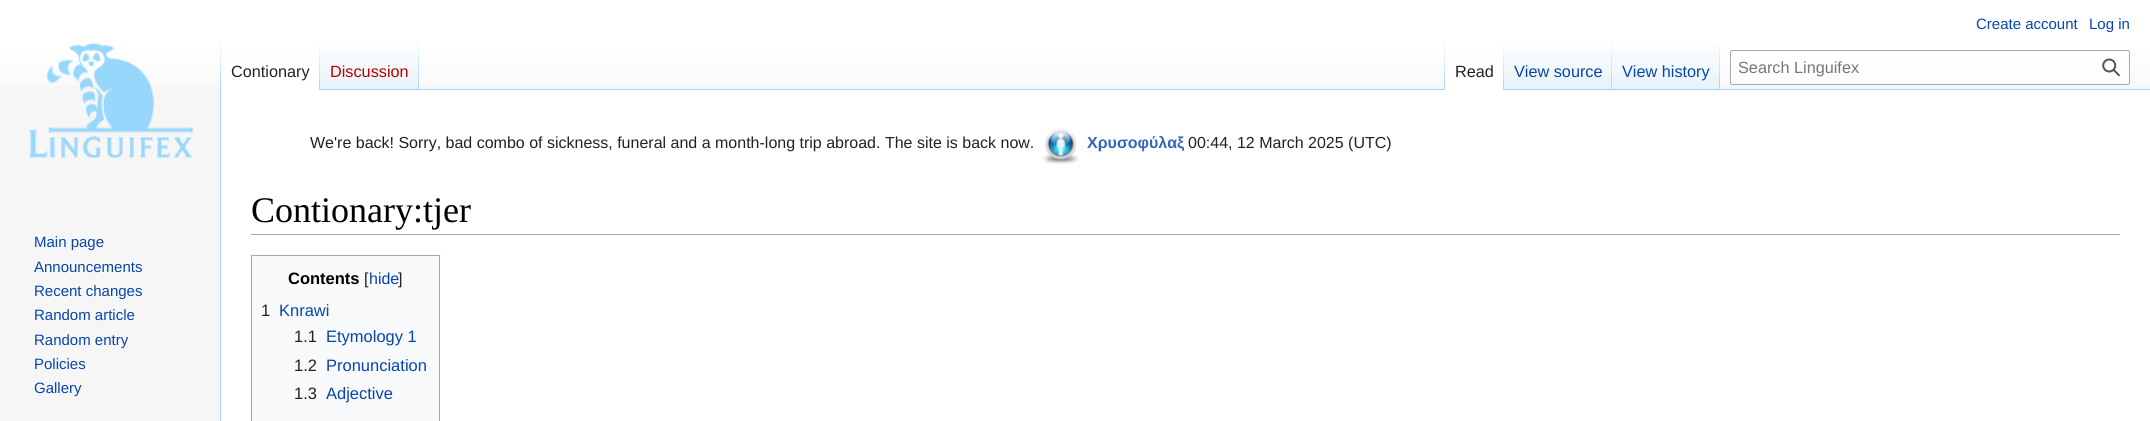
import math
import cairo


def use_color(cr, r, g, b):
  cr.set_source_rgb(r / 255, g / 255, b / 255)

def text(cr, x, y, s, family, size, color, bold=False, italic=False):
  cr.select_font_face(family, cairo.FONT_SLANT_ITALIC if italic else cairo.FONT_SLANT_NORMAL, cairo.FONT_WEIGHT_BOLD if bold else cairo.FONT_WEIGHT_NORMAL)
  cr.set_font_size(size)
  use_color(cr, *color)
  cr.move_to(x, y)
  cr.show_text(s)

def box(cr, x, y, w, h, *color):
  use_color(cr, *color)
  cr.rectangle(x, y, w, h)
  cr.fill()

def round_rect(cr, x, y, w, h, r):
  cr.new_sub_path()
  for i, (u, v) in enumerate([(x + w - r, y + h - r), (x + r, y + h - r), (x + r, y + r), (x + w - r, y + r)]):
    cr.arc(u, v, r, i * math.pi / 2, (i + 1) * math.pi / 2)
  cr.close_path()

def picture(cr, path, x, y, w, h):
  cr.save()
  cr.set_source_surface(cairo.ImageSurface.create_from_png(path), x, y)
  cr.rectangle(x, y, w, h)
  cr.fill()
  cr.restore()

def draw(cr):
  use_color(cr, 246, 246, 246)
  cr.paint()
  gradient = cairo.LinearGradient(1075, 0, 1075, 100)
  gradient.add_color_stop_rgba(0.5, 1, 1, 1, 1)
  gradient.add_color_stop_rgba(1, 0.965, 0.965, 0.965, 1)
  cr.set_source(gradient)
  cr.rectangle(0, 0, 2150, 86)
  cr.fill()
  box(cr, 220, 89, 1, 332, 167, 215, 249)
  gradient = cairo.LinearGradient(221, 40, 221, 90)
  gradient.add_color_stop_rgba(0, 0.655, 0.843, 0.976, 0)
  gradient.add_color_stop_rgba(1, 0.655, 0.843, 0.976, 1)
  cr.set_source(gradient)
  cr.rectangle(220, 40, 1, 50)
  cr.fill()
  box(cr, 221, 64, 98, 26, 255, 255, 255)
  gradient = cairo.LinearGradient(319, 40, 319, 90)
  gradient.add_color_stop_rgba(0, 1, 1, 1, 1)
  gradient.add_color_stop_rgba(1, 0.655, 0.843, 0.976, 1)
  cr.set_source(gradient)
  cr.rectangle(319, 40, 1, 50)
  cr.fill()
  gradient = cairo.LinearGradient(369, 90, 369, 40)
  gradient.add_color_stop_rgba(0, 0.467, 0.757, 0.965, 1)
  gradient.add_color_stop_rgba(0.03, 0.91, 0.949, 0.973, 1)
  gradient.add_color_stop_rgba(1, 1, 1, 1, 1)
  cr.set_source(gradient)
  cr.rectangle(320, 45, 99, 45)
  cr.fill()
  gradient = cairo.LinearGradient(418, 40, 418, 90)
  gradient.add_color_stop_rgba(0, 0.655, 0.843, 0.976, 0)
  gradient.add_color_stop_rgba(1, 0.655, 0.843, 0.976, 1)
  cr.set_source(gradient)
  cr.rectangle(418, 40, 1, 50)
  cr.fill()
  box(cr, 419, 89, 1731, 1, 167, 215, 249)
  gradient = cairo.LinearGradient(1444, 40, 1444, 90)
  gradient.add_color_stop_rgba(0, 0.655, 0.843, 0.976, 0)
  gradient.add_color_stop_rgba(1, 0.655, 0.843, 0.976, 1)
  cr.set_source(gradient)
  cr.rectangle(1444, 40, 1, 50)
  cr.fill()
  box(cr, 1445, 64, 58, 26, 255, 255, 255)
  gradient = cairo.LinearGradient(1503, 40, 1503, 90)
  gradient.add_color_stop_rgba(0, 1, 1, 1, 1)
  gradient.add_color_stop_rgba(1, 0.655, 0.843, 0.976, 1)
  cr.set_source(gradient)
  cr.rectangle(1503, 40, 1, 50)
  cr.fill()
  gradient = cairo.LinearGradient(1558, 90, 1558, 40)
  gradient.add_color_stop_rgba(0, 0.467, 0.757, 0.965, 1)
  gradient.add_color_stop_rgba(0.03, 0.91, 0.949, 0.973, 1)
  gradient.add_color_stop_rgba(1, 1, 1, 1, 1)
  cr.set_source(gradient)
  cr.rectangle(1504, 45, 109, 45)
  cr.fill()
  gradient = cairo.LinearGradient(1612, 40, 1612, 90)
  gradient.add_color_stop_rgba(0, 0.655, 0.843, 0.976, 0)
  gradient.add_color_stop_rgba(1, 0.655, 0.843, 0.976, 1)
  cr.set_source(gradient)
  cr.rectangle(1611, 40, 1, 50)
  cr.fill()
  gradient = cairo.LinearGradient(1666, 90, 1666, 40)
  gradient.add_color_stop_rgba(0, 0.467, 0.757, 0.965, 1)
  gradient.add_color_stop_rgba(0.03, 0.91, 0.949, 0.973, 1)
  gradient.add_color_stop_rgba(1, 1, 1, 1, 1)
  cr.set_source(gradient)
  cr.rectangle(1613, 45, 107, 45)
  cr.fill()
  gradient = cairo.LinearGradient(1719, 40, 1719, 90)
  gradient.add_color_stop_rgba(0, 0.655, 0.843, 0.976, 0)
  gradient.add_color_stop_rgba(1, 0.655, 0.843, 0.976, 1)
  cr.set_source(gradient)
  cr.rectangle(1719, 40, 1, 50)
  cr.fill()
  cr.set_source_rgba(1, 1, 1, 0.5)
  round_rect(cr, 1730.5, 50.5, 399, 34, 2)
  cr.fill_preserve()
  use_color(cr, 162, 169, 177)
  cr.set_line_width(1)
  cr.stroke()
  picture(cr, "img_01.png", 2102, 58, 19, 19)
  picture(cr, "img_02.png", 29, 43, 164, 115)
  box(cr, 221, 90, 1929, 331, 255, 255, 255)
  picture(cr, "img_03.png", 1042, 128, 37, 36)
  box(cr, 251, 234, 1869, 1, 162, 169, 177)
  use_color(cr, 248, 249, 250)
  cr.rectangle(251.5, 255.5, 188, 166)
  cr.fill_preserve()
  use_color(cr, 162, 169, 177)
  cr.stroke()
  text(cr, 1976, 29, "Create account", "Liberation Sans", 15, (6, 69, 173))
  text(cr, 2089, 29, "Log in", "Liberation Sans", 15, (6, 69, 173))
  text(cr, 231, 77, "Contionary", "Liberation Sans", 16.25, (32, 33, 34))
  text(cr, 330, 77, "Discussion", "Liberation Sans", 16.25, (186, 0, 0))
  text(cr, 1455, 77, "Read", "Liberation Sans", 16.25, (32, 33, 34))
  text(cr, 1514, 77, "View source", "Liberation Sans", 16.25, (6, 69, 173))
  text(cr, 1622, 77, "View history", "Liberation Sans", 16.25, (6, 69, 173))
  text(cr, 1738, 73, "Search Linguifex", "Liberation Sans", 16.25, (114, 119, 125))
  text(cr, 34, 247, "Main page", "Liberation Sans", 15, (6, 69, 173))
  text(cr, 34, 272, "Announcements", "Liberation Sans", 15, (6, 69, 173))
  text(cr, 34, 296, "Recent changes", "Liberation Sans", 15, (6, 69, 173))
  text(cr, 34, 320, "Random article", "Liberation Sans", 15, (6, 69, 173))
  text(cr, 34, 345, "Random entry", "Liberation Sans", 15, (6, 69, 173))
  text(cr, 34, 369, "Policies", "Liberation Sans", 15, (6, 69, 173))
  text(cr, 34, 393, "Gallery", "Liberation Sans", 15, (6, 69, 173))
  text(cr, 310, 148, "We're back! Sorry, bad combo of sickness, funeral and a month-long trip abroad. The site is back now.", "Liberation Sans", 16, (32, 33, 34))
  text(cr, 1087, 148, "Χρυσοφύλαξ", "Liberation Sans", 16, (51, 102, 187), bold=True)
  text(cr, 1188, 148, "00:44, 12 March 2025 (UTC)", "Liberation Sans", 16, (32, 33, 34))
  text(cr, 251, 222, "Contionary:tjer", "Liberation Serif", 36, (0, 0, 0))
  text(cr, 288, 284, "Contents", "Liberation Sans", 16.5, (0, 0, 0), bold=True)
  text(cr, 364, 284, "[", "Liberation Sans", 16, (32, 33, 34))
  text(cr, 369, 284, "hide", "Liberation Sans", 16, (6, 69, 173))
  text(cr, 398, 284, "]", "Liberation Sans", 16, (32, 33, 34))
  text(cr, 261, 316, "1", "Liberation Sans", 16.5, (32, 33, 34))
  text(cr, 279, 316, "Knrawi", "Liberation Sans", 16.5, (6, 69, 173))
  text(cr, 294, 342, "1.1", "Liberation Sans", 16.5, (32, 33, 34))
  text(cr, 326, 342, "Etymology 1", "Liberation Sans", 16.5, (6, 69, 173))
  text(cr, 294, 371, "1.2", "Liberation Sans", 16.5, (32, 33, 34))
  text(cr, 326, 371, "Pronunciation", "Liberation Sans", 16.5, (6, 69, 173))
  text(cr, 294, 399, "1.3", "Liberation Sans", 16.5, (32, 33, 34))
  text(cr, 326, 399, "Adjective", "Liberation Sans", 16.5, (6, 69, 173))


surface = cairo.ImageSurface(cairo.FORMAT_RGB24, 2150, 421)
cr = cairo.Context(surface)
options = cairo.FontOptions()
options.set_hint_metrics(cairo.HINT_METRICS_OFF)
options.set_hint_style(cairo.HINT_STYLE_NONE)
cr.set_font_options(options)
cr.set_miter_limit(4)
draw(cr)
surface.write_to_png("out.png")
